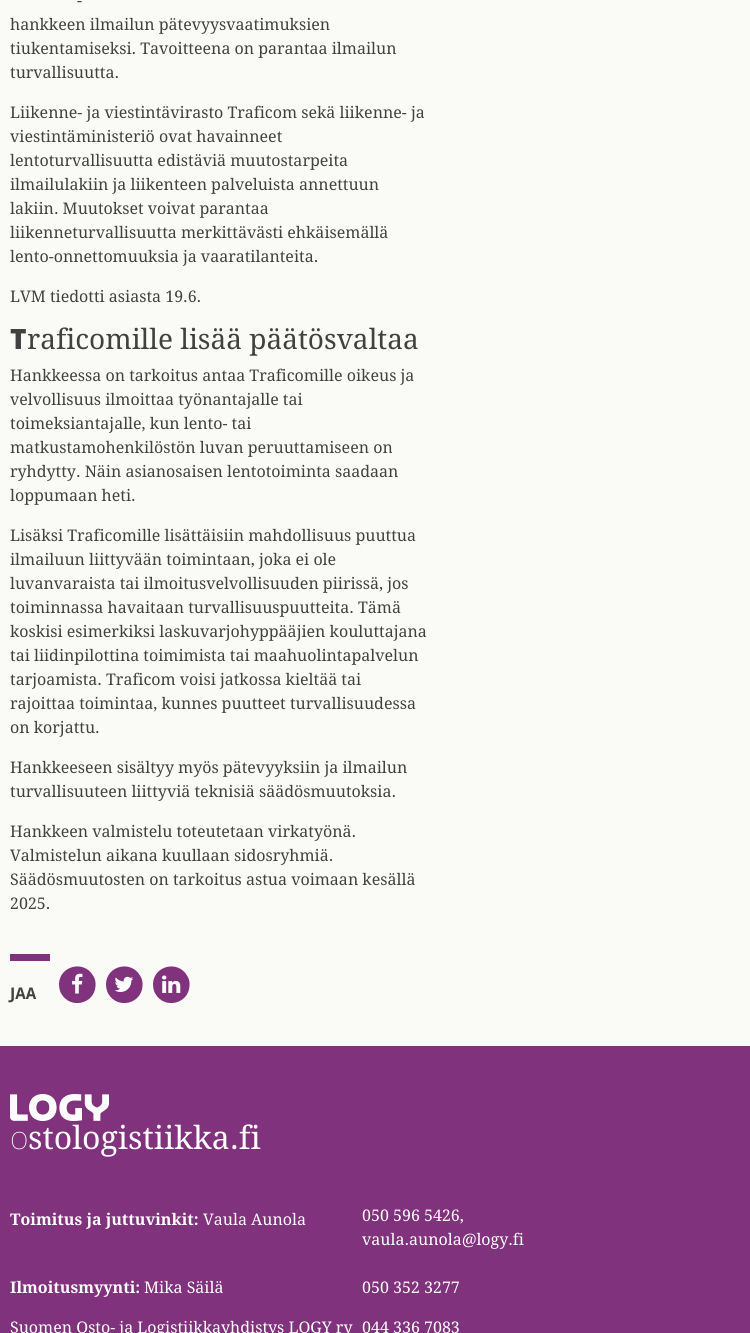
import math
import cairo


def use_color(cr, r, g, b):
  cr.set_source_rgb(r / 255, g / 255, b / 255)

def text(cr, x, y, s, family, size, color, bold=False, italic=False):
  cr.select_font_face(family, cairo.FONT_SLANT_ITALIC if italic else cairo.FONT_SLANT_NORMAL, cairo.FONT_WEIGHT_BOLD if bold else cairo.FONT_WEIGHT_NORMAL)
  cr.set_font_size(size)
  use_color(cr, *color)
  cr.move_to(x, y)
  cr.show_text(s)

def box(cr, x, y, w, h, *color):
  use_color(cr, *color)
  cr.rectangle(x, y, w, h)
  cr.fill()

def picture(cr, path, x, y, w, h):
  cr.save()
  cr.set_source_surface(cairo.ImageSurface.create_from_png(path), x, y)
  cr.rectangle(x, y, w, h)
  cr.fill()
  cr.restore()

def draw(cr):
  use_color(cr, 128, 50, 124)
  cr.paint()
  box(cr, 0, 0, 750, 1046, 250, 250, 247)
  box(cr, 10, 954, 40, 7, 128, 50, 124)
  cr.new_path()
  cr.move_to(93, 975.5)
  cr.curve_to(95, 978.5, 96, 982.5, 95.5, 986)
  cr.curve_to(94.5, 1004, 70.5, 1009.5, 61.5, 994)
  cr.curve_to(59.5, 991, 59, 987, 59, 983.5)
  cr.curve_to(60, 965.5, 84, 960, 93, 975.5)
  cr.close_path()
  cr.fill()
  picture(cr, "img_01.png", 72, 973, 11, 21)
  cr.new_path()
  cr.move_to(140, 975.5)
  cr.curve_to(142, 978.5, 143, 982.5, 142.5, 986)
  cr.curve_to(141.5, 1004, 117.5, 1009.5, 108.5, 994)
  cr.curve_to(106.5, 991, 106, 987, 106, 983.5)
  cr.curve_to(107, 965.5, 131, 960, 140, 975.5)
  cr.close_path()
  cr.fill()
  picture(cr, "img_02.png", 114, 976, 20, 16)
  cr.new_path()
  cr.move_to(187, 975.5)
  cr.curve_to(189, 978.5, 190, 982.5, 189.5, 986)
  cr.curve_to(188.5, 1004, 164.5, 1009.5, 155.5, 994)
  cr.curve_to(153.5, 991, 153, 987, 153, 983.5)
  cr.curve_to(154, 965.5, 178, 960, 187, 975.5)
  cr.close_path()
  cr.fill()
  picture(cr, "img_03.png", 162, 975, 19, 18)
  picture(cr, "img_04.png", 10, 1094, 99, 27)
  text(cr, 77, 6, "-", "Droid Serif", 16, (65, 65, 65))
  text(cr, 10, 30, "hankkeen ilmailun pätevyysvaatimuksien", "Droid Serif", 16, (65, 65, 65))
  text(cr, 10, 54, "tiukentamiseksi. Tavoitteena on parantaa ilmailun", "Droid Serif", 16, (65, 65, 65))
  text(cr, 10, 78, "turvallisuutta.", "Droid Serif", 16, (65, 65, 65))
  text(cr, 10, 118, "Liikenne- ja viestintävirasto Traficom sekä liikenne- ja", "Droid Serif", 16, (65, 65, 65))
  text(cr, 10, 142, "viestintäministeriö ovat havainneet", "Droid Serif", 16, (65, 65, 65))
  text(cr, 10, 166, "lentoturvallisuutta edistäviä muutostarpeita", "Droid Serif", 16, (65, 65, 65))
  text(cr, 10, 190, "ilmailulakiin ja liikenteen palveluista annettuun", "Droid Serif", 16, (65, 65, 65))
  text(cr, 10, 214, "lakiin. Muutokset voivat parantaa", "Droid Serif", 16, (65, 65, 65))
  text(cr, 10, 238, "liikenneturvallisuutta merkittävästi ehkäisemällä", "Droid Serif", 16, (65, 65, 65))
  text(cr, 10, 262, "lento-onnettomuuksia ja vaaratilanteita.", "Droid Serif", 16, (65, 65, 65))
  text(cr, 10, 302, "LVM tiedotti asiasta 19.6.", "Droid Serif", 16, (65, 65, 65))
  text(cr, 10, 349, "T", "Noto Sans Black", 28, (65, 65, 65))
  text(cr, 27, 349, "raficomille lisää päätösvaltaa", "Droid Serif", 28, (65, 65, 65))
  text(cr, 10, 381, "Hankkeessa on tarkoitus antaa Traficomille oikeus ja", "Droid Serif", 16, (65, 65, 65))
  text(cr, 10, 405, "velvollisuus ilmoittaa työnantajalle tai", "Droid Serif", 16, (65, 65, 65))
  text(cr, 10, 429, "toimeksiantajalle, kun lento- tai", "Droid Serif", 16, (65, 65, 65))
  text(cr, 10, 453, "matkustamohenkilöstön luvan peruuttamiseen on", "Droid Serif", 16, (65, 65, 65))
  text(cr, 10, 477, "ryhdytty. Näin asianosaisen lentotoiminta saadaan", "Droid Serif", 16, (65, 65, 65))
  text(cr, 10, 501, "loppumaan heti.", "Droid Serif", 16, (65, 65, 65))
  text(cr, 10, 541, "Lisäksi Traficomille lisättäisiin mahdollisuus puuttua", "Droid Serif", 16, (65, 65, 65))
  text(cr, 10, 565, "ilmailuun liittyvään toimintaan, joka ei ole", "Droid Serif", 16, (65, 65, 65))
  text(cr, 10, 589, "luvanvaraista tai ilmoitusvelvollisuuden piirissä, jos", "Droid Serif", 16, (65, 65, 65))
  text(cr, 10, 613, "toiminnassa havaitaan turvallisuuspuutteita. Tämä", "Droid Serif", 16, (65, 65, 65))
  text(cr, 10, 637, "koskisi esimerkiksi laskuvarjohyppääjien kouluttajana", "Droid Serif", 16, (65, 65, 65))
  text(cr, 10, 661, "tai liidinpilottina toimimista tai maahuolintapalvelun", "Droid Serif", 16, (65, 65, 65))
  text(cr, 10, 685, "tarjoamista. Traficom voisi jatkossa kieltää tai", "Droid Serif", 16, (65, 65, 65))
  text(cr, 10, 709, "rajoittaa toimintaa, kunnes puutteet turvallisuudessa", "Droid Serif", 16, (65, 65, 65))
  text(cr, 10, 733, "on korjattu.", "Droid Serif", 16, (65, 65, 65))
  text(cr, 10, 773, "Hankkeeseen sisältyy myös pätevyyksiin ja ilmailun", "Droid Serif", 16, (65, 65, 65))
  text(cr, 10, 797, "turvallisuuteen liittyviä teknisiä säädösmuutoksia.", "Droid Serif", 16, (65, 65, 65))
  text(cr, 10, 837, "Hankkeen valmistelu toteutetaan virkatyönä.", "Droid Serif", 16, (65, 65, 65))
  text(cr, 10, 861, "Valmistelun aikana kuullaan sidosryhmiä.", "Droid Serif", 16, (65, 65, 65))
  text(cr, 10, 885, "Säädösmuutosten on tarkoitus astua voimaan kesällä", "Droid Serif", 16, (65, 65, 65))
  text(cr, 10, 909, "2025.", "Droid Serif", 16, (65, 65, 65))
  text(cr, 10, 999, "JAA", "Droid Sans", 16, (65, 65, 65), bold=True)
  text(cr, 10, 1149, "o", "Noto Sans Thin", 32, (255, 255, 255))
  text(cr, 28, 1149, "stologistiikka.fi", "Droid Serif", 32, (255, 255, 255))
  text(cr, 10, 1225, "Toimitus ja juttuvinkit:", "Droid Serif", 16, (255, 255, 255), bold=True)
  text(cr, 203, 1225, "Vaula Aunola", "Droid Serif", 16, (255, 255, 255))
  text(cr, 362, 1221, "050 596 5426,", "Droid Serif", 16, (255, 255, 255))
  text(cr, 362, 1245, "vaula.aunola@logy.fi", "Droid Serif", 16, (255, 255, 255))
  text(cr, 10, 1293, "Ilmoitusmyynti:", "Droid Serif", 16, (255, 255, 255), bold=True)
  text(cr, 144, 1293, "Mika Säilä", "Droid Serif", 16, (255, 255, 255))
  text(cr, 362, 1293, "050 352 3277", "Droid Serif", 16, (255, 255, 255))
  text(cr, 10, 1333, "Suomen Osto- ja Logistiikkayhdistys LOGY ry", "Droid Serif", 16, (255, 255, 255))
  text(cr, 362, 1333, "044 336 7083", "Droid Serif", 16, (255, 255, 255))


surface = cairo.ImageSurface(cairo.FORMAT_RGB24, 750, 1333)
cr = cairo.Context(surface)
options = cairo.FontOptions()
options.set_hint_metrics(cairo.HINT_METRICS_OFF)
options.set_hint_style(cairo.HINT_STYLE_NONE)
cr.set_font_options(options)
cr.set_miter_limit(4)
draw(cr)
surface.write_to_png("out.png")
